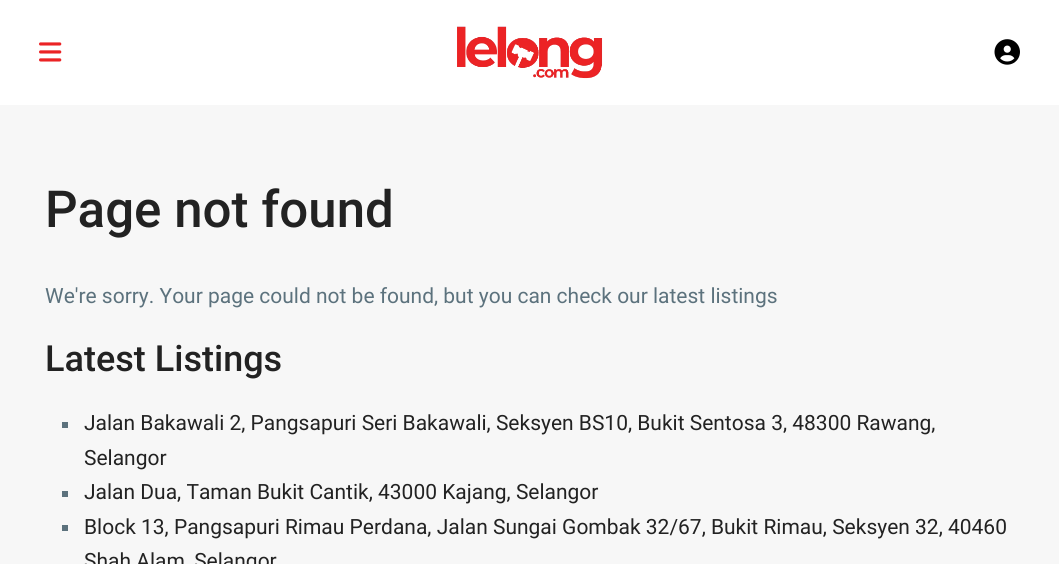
import math
import cairo


def use_color(cr, r, g, b):
  cr.set_source_rgb(r / 255, g / 255, b / 255)

def text(cr, x, y, s, family, size, color, bold=False, italic=False):
  cr.select_font_face(family, cairo.FONT_SLANT_ITALIC if italic else cairo.FONT_SLANT_NORMAL, cairo.FONT_WEIGHT_BOLD if bold else cairo.FONT_WEIGHT_NORMAL)
  cr.set_font_size(size)
  use_color(cr, *color)
  cr.move_to(x, y)
  cr.show_text(s)

def box(cr, x, y, w, h, *color):
  use_color(cr, *color)
  cr.rectangle(x, y, w, h)
  cr.fill()

def picture(cr, path, x, y, w, h):
  cr.save()
  cr.set_source_surface(cairo.ImageSurface.create_from_png(path), x, y)
  cr.rectangle(x, y, w, h)
  cr.fill()
  cr.restore()

def draw(cr):
  use_color(cr, 247, 247, 247)
  cr.paint()
  box(cr, 0, 0, 1059, 105, 255, 255, 255)
  picture(cr, "img_01.png", 39, 42, 23, 20)
  picture(cr, "img_02.png", 457, 26, 146, 53)
  picture(cr, "img_03.png", 994, 39, 26, 26)
  box(cr, 62, 422, 6, 6, 92, 114, 125)
  box(cr, 62, 491, 6, 6, 92, 114, 125)
  box(cr, 62, 525, 6, 6, 92, 114, 125)
  text(cr, 45, 227, "Page not found", "Roboto Medium", 51, (34, 34, 34))
  text(cr, 45, 303, "We're sorry. Your page could not be found, but you can check our latest listings", "Roboto", 21, (92, 114, 125))
  text(cr, 45, 371, "Latest Listings", "Roboto Medium", 36, (34, 34, 34))
  text(cr, 84, 430, "Jalan Bakawali 2, Pangsapuri Seri Bakawali, Seksyen BS10, Bukit Sentosa 3, 48300 Rawang,", "Roboto", 21, (34, 34, 34))
  text(cr, 84, 465, "Selangor", "Roboto", 21, (34, 34, 34))
  text(cr, 84, 499, "Jalan Dua, Taman Bukit Cantik, 43000 Kajang, Selangor", "Roboto", 21, (34, 34, 34))
  text(cr, 84, 534, "Block 13, Pangsapuri Rimau Perdana, Jalan Sungai Gombak 32/67, Bukit Rimau, Seksyen 32, 40460", "Roboto", 21, (34, 34, 34))
  text(cr, 84, 568, "Shah Alam, Selangor", "Roboto", 21, (34, 34, 34))


surface = cairo.ImageSurface(cairo.FORMAT_RGB24, 1059, 564)
cr = cairo.Context(surface)
options = cairo.FontOptions()
options.set_hint_metrics(cairo.HINT_METRICS_OFF)
options.set_hint_style(cairo.HINT_STYLE_NONE)
cr.set_font_options(options)
cr.set_miter_limit(4)
draw(cr)
surface.write_to_png("out.png")
